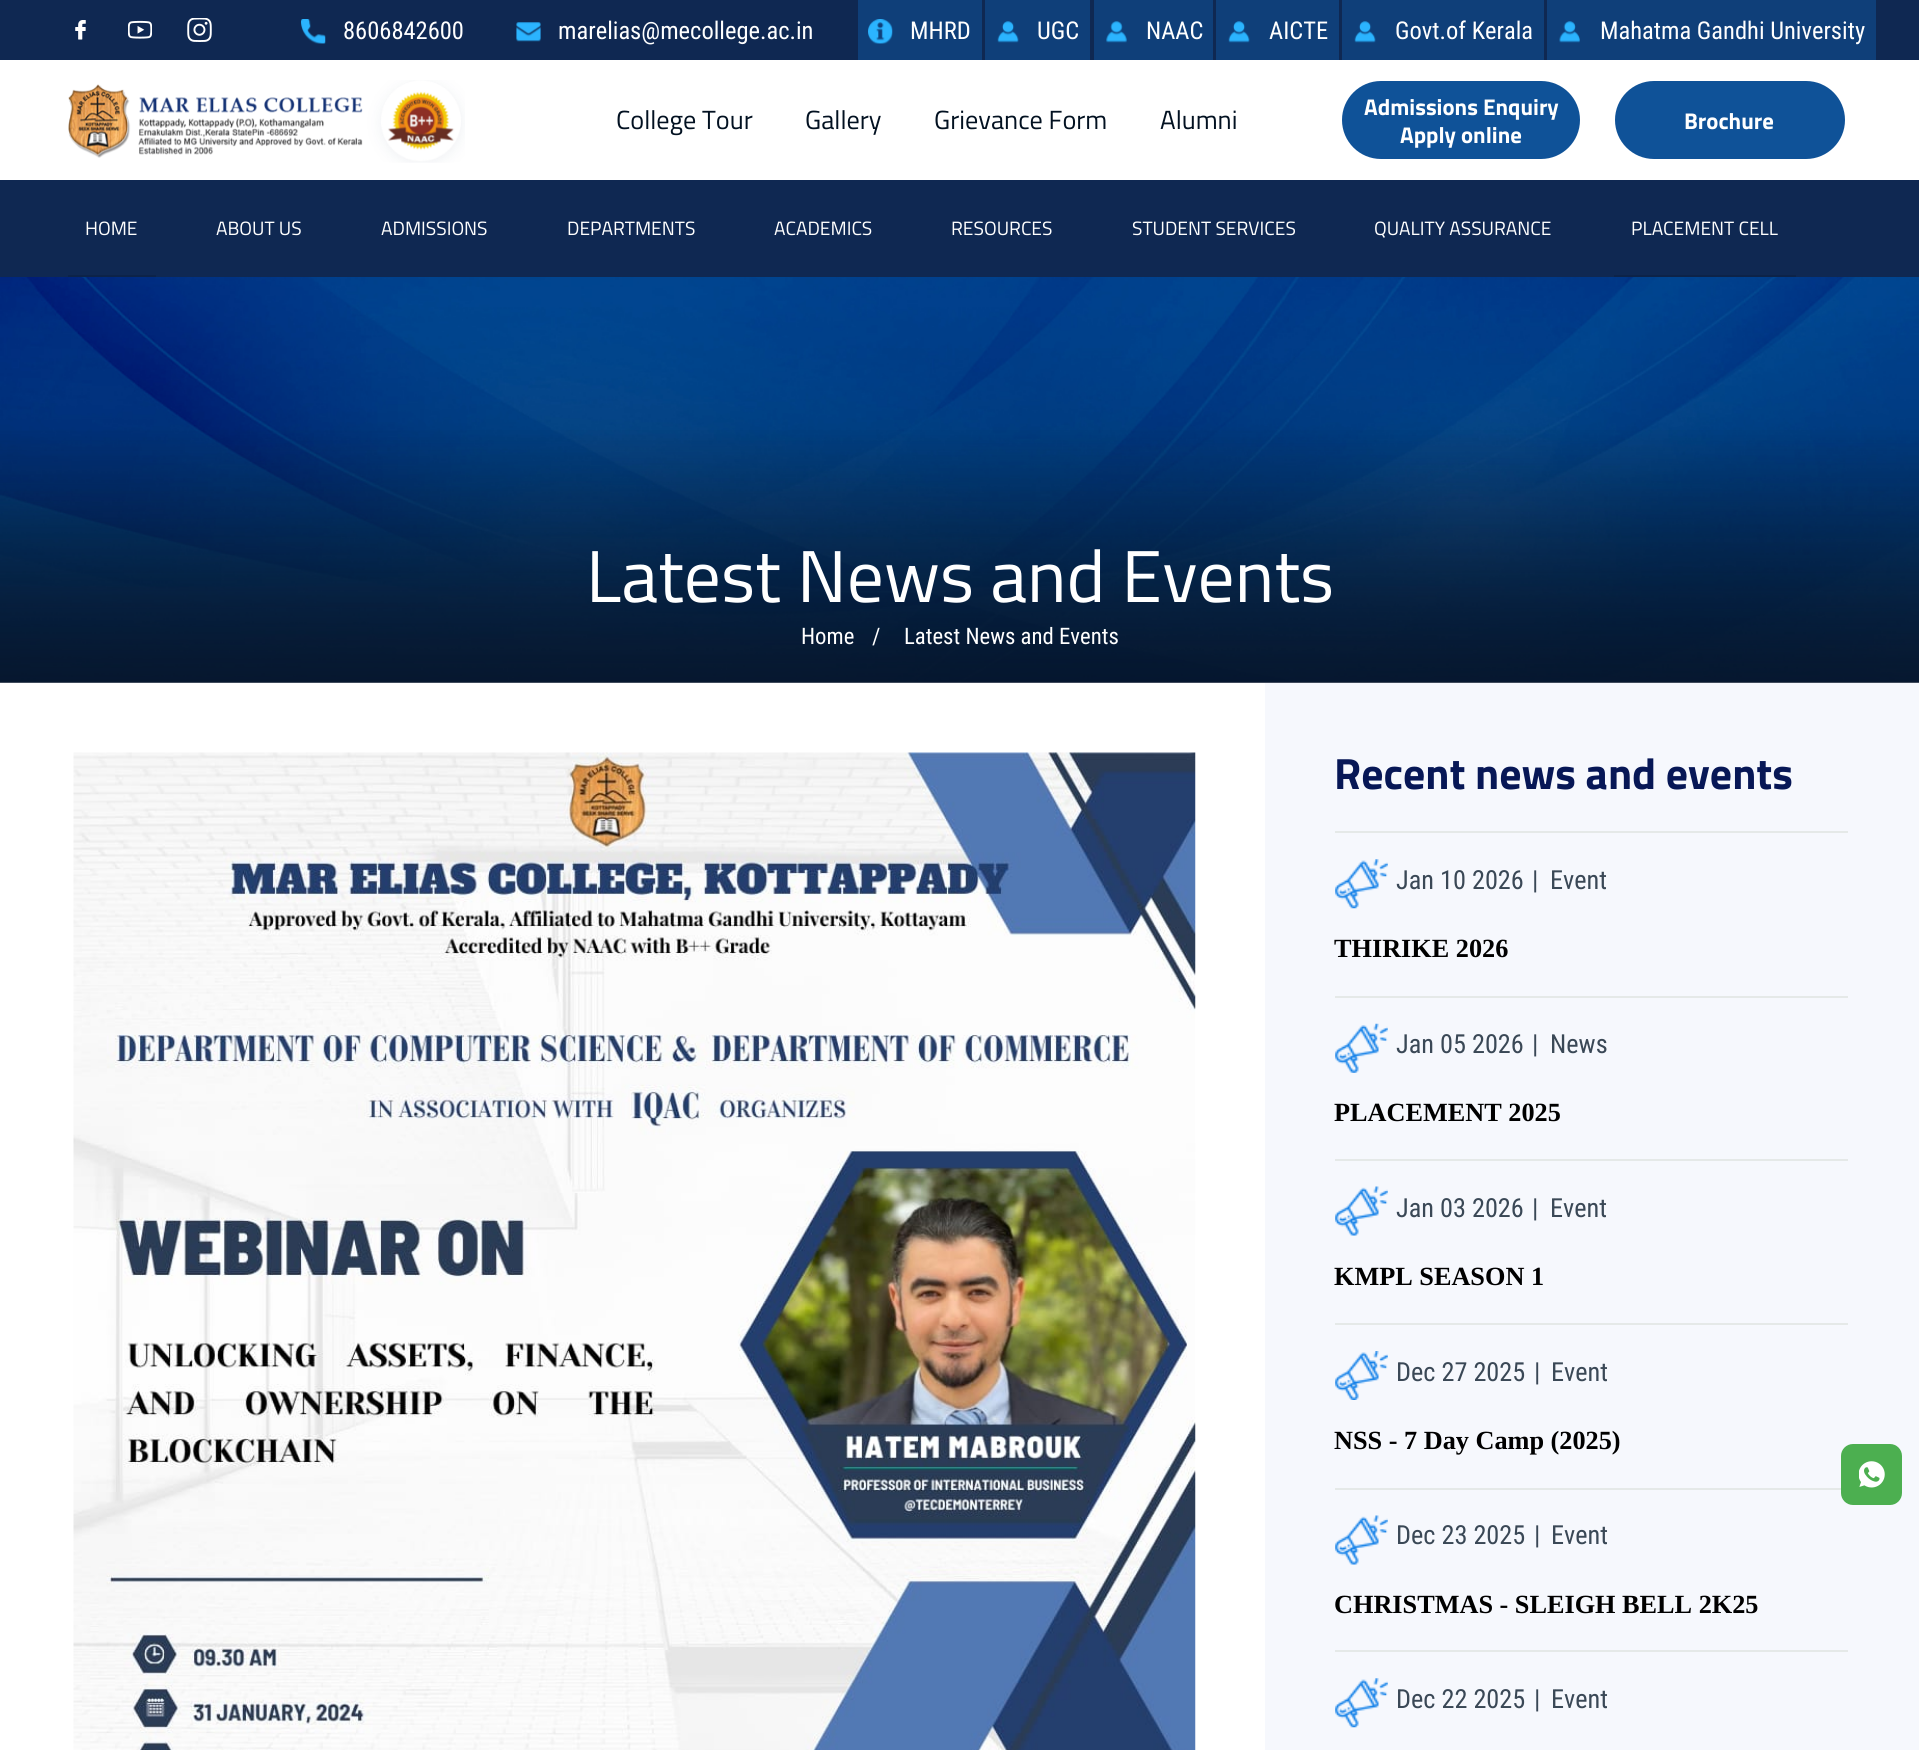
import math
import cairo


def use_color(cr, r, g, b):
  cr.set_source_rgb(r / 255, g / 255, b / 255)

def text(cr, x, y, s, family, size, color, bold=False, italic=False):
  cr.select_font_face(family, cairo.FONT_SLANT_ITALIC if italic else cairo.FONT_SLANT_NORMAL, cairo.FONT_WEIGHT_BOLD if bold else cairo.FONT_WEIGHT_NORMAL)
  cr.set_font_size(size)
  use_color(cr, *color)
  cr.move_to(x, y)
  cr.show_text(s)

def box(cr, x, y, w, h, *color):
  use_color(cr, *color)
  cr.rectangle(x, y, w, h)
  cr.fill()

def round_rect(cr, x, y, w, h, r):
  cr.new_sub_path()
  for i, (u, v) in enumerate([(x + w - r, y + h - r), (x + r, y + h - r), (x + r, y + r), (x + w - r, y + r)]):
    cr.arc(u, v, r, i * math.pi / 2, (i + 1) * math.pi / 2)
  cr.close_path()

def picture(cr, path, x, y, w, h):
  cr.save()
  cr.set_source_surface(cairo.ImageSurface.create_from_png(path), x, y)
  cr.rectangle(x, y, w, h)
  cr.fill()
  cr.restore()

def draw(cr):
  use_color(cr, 255, 255, 255)
  cr.paint()
  box(cr, 0, 0, 1919, 60, 15, 40, 82)
  picture(cr, "img_01.png", 75, 20, 11, 20)
  picture(cr, "img_02.png", 128, 20, 24, 19)
  picture(cr, "img_03.png", 187, 18, 25, 24)
  picture(cr, "img_04.png", 301, 19, 25, 25)
  picture(cr, "img_05.png", 516, 22, 25, 20)
  box(cr, 858, 0, 124, 60, 15, 63, 121)
  picture(cr, "img_06.png", 868, 19, 25, 25)
  box(cr, 985, 0, 105, 60, 15, 63, 121)
  picture(cr, "img_07.png", 997, 21, 22, 22)
  box(cr, 1094, 0, 119, 60, 15, 63, 121)
  picture(cr, "img_08.png", 1106, 21, 21, 22)
  box(cr, 1216, 0, 123, 60, 15, 63, 121)
  picture(cr, "img_07.png", 1228, 21, 22, 22)
  box(cr, 1342, 0, 202, 60, 15, 63, 121)
  picture(cr, "img_07.png", 1354, 21, 22, 22)
  box(cr, 1547, 0, 329, 60, 15, 63, 121)
  picture(cr, "img_09.png", 1559, 21, 21, 22)
  picture(cr, "img_10.png", 68, 80, 397, 83)
  use_color(cr, 15, 82, 152)
  round_rect(cr, 1342, 81, 238, 78, 39)
  cr.fill()
  round_rect(cr, 1615, 81, 230, 78, 39)
  cr.fill()
  box(cr, 0, 180, 1919, 97, 15, 40, 82)
  box(cr, 68, 275, 88, 2, 13, 35, 72)
  box(cr, 1614, 275, 182, 2, 13, 35, 72)
  picture(cr, "img_11.png", 0, 277, 1919, 406)
  gradient = cairo.LinearGradient(960, 683, 960, 420)
  gradient.add_color_stop_rgba(0, 0.031, 0.082, 0.169, 0.7)
  gradient.add_color_stop_rgba(1, 0.031, 0.082, 0.169, 0)
  cr.set_source(gradient)
  cr.rectangle(0, 430, 1919, 253)
  cr.fill()
  picture(cr, "img_12.png", 73, 752, 1123, 998)
  box(cr, 1265, 683, 654, 1067, 246, 248, 253)
  box(cr, 1335, 831, 513, 2, 229, 233, 232)
  picture(cr, "img_13.png", 1335, 859, 53, 50)
  box(cr, 1335, 996, 513, 2, 229, 233, 232)
  picture(cr, "img_14.png", 1335, 1023, 53, 50)
  box(cr, 1335, 1159, 513, 2, 229, 233, 232)
  picture(cr, "img_15.png", 1335, 1186, 53, 50)
  box(cr, 1335, 1323, 513, 2, 229, 233, 232)
  picture(cr, "img_16.png", 1335, 1351, 53, 49)
  box(cr, 1335, 1488, 513, 2, 229, 233, 232)
  picture(cr, "img_15.png", 1335, 1515, 53, 50)
  box(cr, 1335, 1650, 513, 2, 229, 233, 232)
  picture(cr, "img_17.png", 1335, 1678, 53, 50)
  use_color(cr, 76, 175, 80)
  round_rect(cr, 1841, 1444, 61, 61, 12)
  cr.fill()
  picture(cr, "img_18.png", 1859, 1461, 26, 27)
  text(cr, 343, 39, "8606842600", "Roboto Condensed", 24.5, (255, 255, 255))
  text(cr, 558, 39, "marelias@mecollege.ac.in", "Roboto Condensed", 24.5, (255, 255, 255))
  text(cr, 910, 39, "MHRD", "Roboto Condensed", 24.5, (255, 255, 255))
  text(cr, 1037, 39, "UGC", "Roboto Condensed", 24.5, (255, 255, 255))
  text(cr, 1146, 39, "NAAC", "Roboto Condensed", 24.5, (255, 255, 255))
  text(cr, 1269, 39, "AICTE", "Roboto Condensed", 24.5, (255, 255, 255))
  text(cr, 1395, 39, "Govt.of Kerala", "Roboto Condensed", 24.5, (255, 255, 255))
  text(cr, 1600, 39, "Mahatma Gandhi University", "Roboto Condensed", 24.5, (255, 255, 255))
  text(cr, 616, 129, "College Tour", "Titillium Web", 26.25, (2, 17, 33))
  text(cr, 805, 129, "Gallery", "Titillium Web", 26.25, (2, 17, 33))
  text(cr, 934, 129, "Grievance Form", "Titillium Web", 26.25, (2, 17, 33))
  text(cr, 1160, 129, "Alumni", "Titillium Web", 26.25, (2, 17, 33))
  text(cr, 1364, 115, "Admissions Enquiry", "Titillium Web", 22.75, (255, 255, 255), bold=True)
  text(cr, 1400, 143, "Apply online", "Titillium Web", 22.75, (255, 255, 255), bold=True)
  text(cr, 1684, 129, "Brochure", "Titillium Web", 22.75, (255, 255, 255), bold=True)
  text(cr, 85, 235, "HOME", "Titillium Web", 19.25, (255, 255, 255))
  text(cr, 216, 235, "ABOUT US", "Titillium Web", 19.25, (255, 255, 255))
  text(cr, 381, 235, "ADMISSIONS", "Titillium Web", 19.25, (255, 255, 255))
  text(cr, 567, 235, "DEPARTMENTS", "Titillium Web", 19.25, (255, 255, 255))
  text(cr, 774, 235, "ACADEMICS", "Titillium Web", 19.25, (255, 255, 255))
  text(cr, 951, 235, "RESOURCES", "Titillium Web", 19.25, (255, 255, 255))
  text(cr, 1132, 235, "STUDENT SERVICES", "Titillium Web", 19.25, (255, 255, 255))
  text(cr, 1374, 235, "QUALITY ASSURANCE", "Titillium Web", 19.25, (255, 255, 255))
  text(cr, 1631, 235, "PLACEMENT CELL", "Titillium Web", 19.25, (255, 255, 255))
  text(cr, 586, 602, "Latest News and Events", "Titillium Web", 73.5, (255, 255, 255))
  text(cr, 801, 644, "Home", "Roboto Condensed", 22.75, (255, 255, 255))
  text(cr, 872, 644, "/", "Roboto Condensed", 22.75, (255, 255, 255))
  text(cr, 904, 644, "Latest News and Events", "Roboto Condensed", 22.75, (255, 255, 255))
  text(cr, 1334, 789, "Recent news and events", "Titillium Web", 43.75, (7, 23, 86), bold=True)
  text(cr, 1396, 889, "Jan 10 2026", "Roboto Condensed", 26.25, (58, 72, 86))
  text(cr, 1532, 889, "|", "Roboto Condensed", 26.25, (58, 72, 86))
  text(cr, 1550, 889, "Event", "Roboto Condensed", 26.25, (58, 72, 86))
  text(cr, 1334, 957, "THIRIKE 2026", "Liberation Serif", 26.25, (0, 0, 0), bold=True)
  text(cr, 1396, 1053, "Jan 05 2026", "Roboto Condensed", 26.25, (58, 72, 86))
  text(cr, 1532, 1053, "|", "Roboto Condensed", 26.25, (58, 72, 86))
  text(cr, 1550, 1053, "News", "Roboto Condensed", 26.25, (58, 72, 86))
  text(cr, 1334, 1121, "PLACEMENT 2025", "Liberation Serif", 26.25, (0, 0, 0), bold=True)
  text(cr, 1396, 1217, "Jan 03 2026", "Roboto Condensed", 26.25, (58, 72, 86))
  text(cr, 1532, 1217, "|", "Roboto Condensed", 26.25, (58, 72, 86))
  text(cr, 1550, 1217, "Event", "Roboto Condensed", 26.25, (58, 72, 86))
  text(cr, 1334, 1285, "KMPL SEASON 1", "Liberation Serif", 26.25, (0, 0, 0), bold=True)
  text(cr, 1396, 1381, "Dec 27 2025", "Roboto Condensed", 26.25, (58, 72, 86))
  text(cr, 1534, 1381, "|", "Roboto Condensed", 26.25, (58, 72, 86))
  text(cr, 1551, 1381, "Event", "Roboto Condensed", 26.25, (58, 72, 86))
  text(cr, 1334, 1449, "NSS - 7 Day Camp (2025)", "Liberation Serif", 26.25, (0, 0, 0), bold=True)
  text(cr, 1396, 1544, "Dec 23 2025", "Roboto Condensed", 26.25, (58, 72, 86))
  text(cr, 1534, 1544, "|", "Roboto Condensed", 26.25, (58, 72, 86))
  text(cr, 1551, 1544, "Event", "Roboto Condensed", 26.25, (58, 72, 86))
  text(cr, 1334, 1613, "CHRISTMAS - SLEIGH BELL 2K25", "Liberation Serif", 26.25, (0, 0, 0), bold=True)
  text(cr, 1396, 1708, "Dec 22 2025", "Roboto Condensed", 26.25, (58, 72, 86))
  text(cr, 1534, 1708, "|", "Roboto Condensed", 26.25, (58, 72, 86))
  text(cr, 1551, 1708, "Event", "Roboto Condensed", 26.25, (58, 72, 86))


surface = cairo.ImageSurface(cairo.FORMAT_RGB24, 1919, 1750)
cr = cairo.Context(surface)
options = cairo.FontOptions()
options.set_hint_metrics(cairo.HINT_METRICS_OFF)
options.set_hint_style(cairo.HINT_STYLE_NONE)
cr.set_font_options(options)
cr.set_miter_limit(4)
draw(cr)
surface.write_to_png("out.png")
